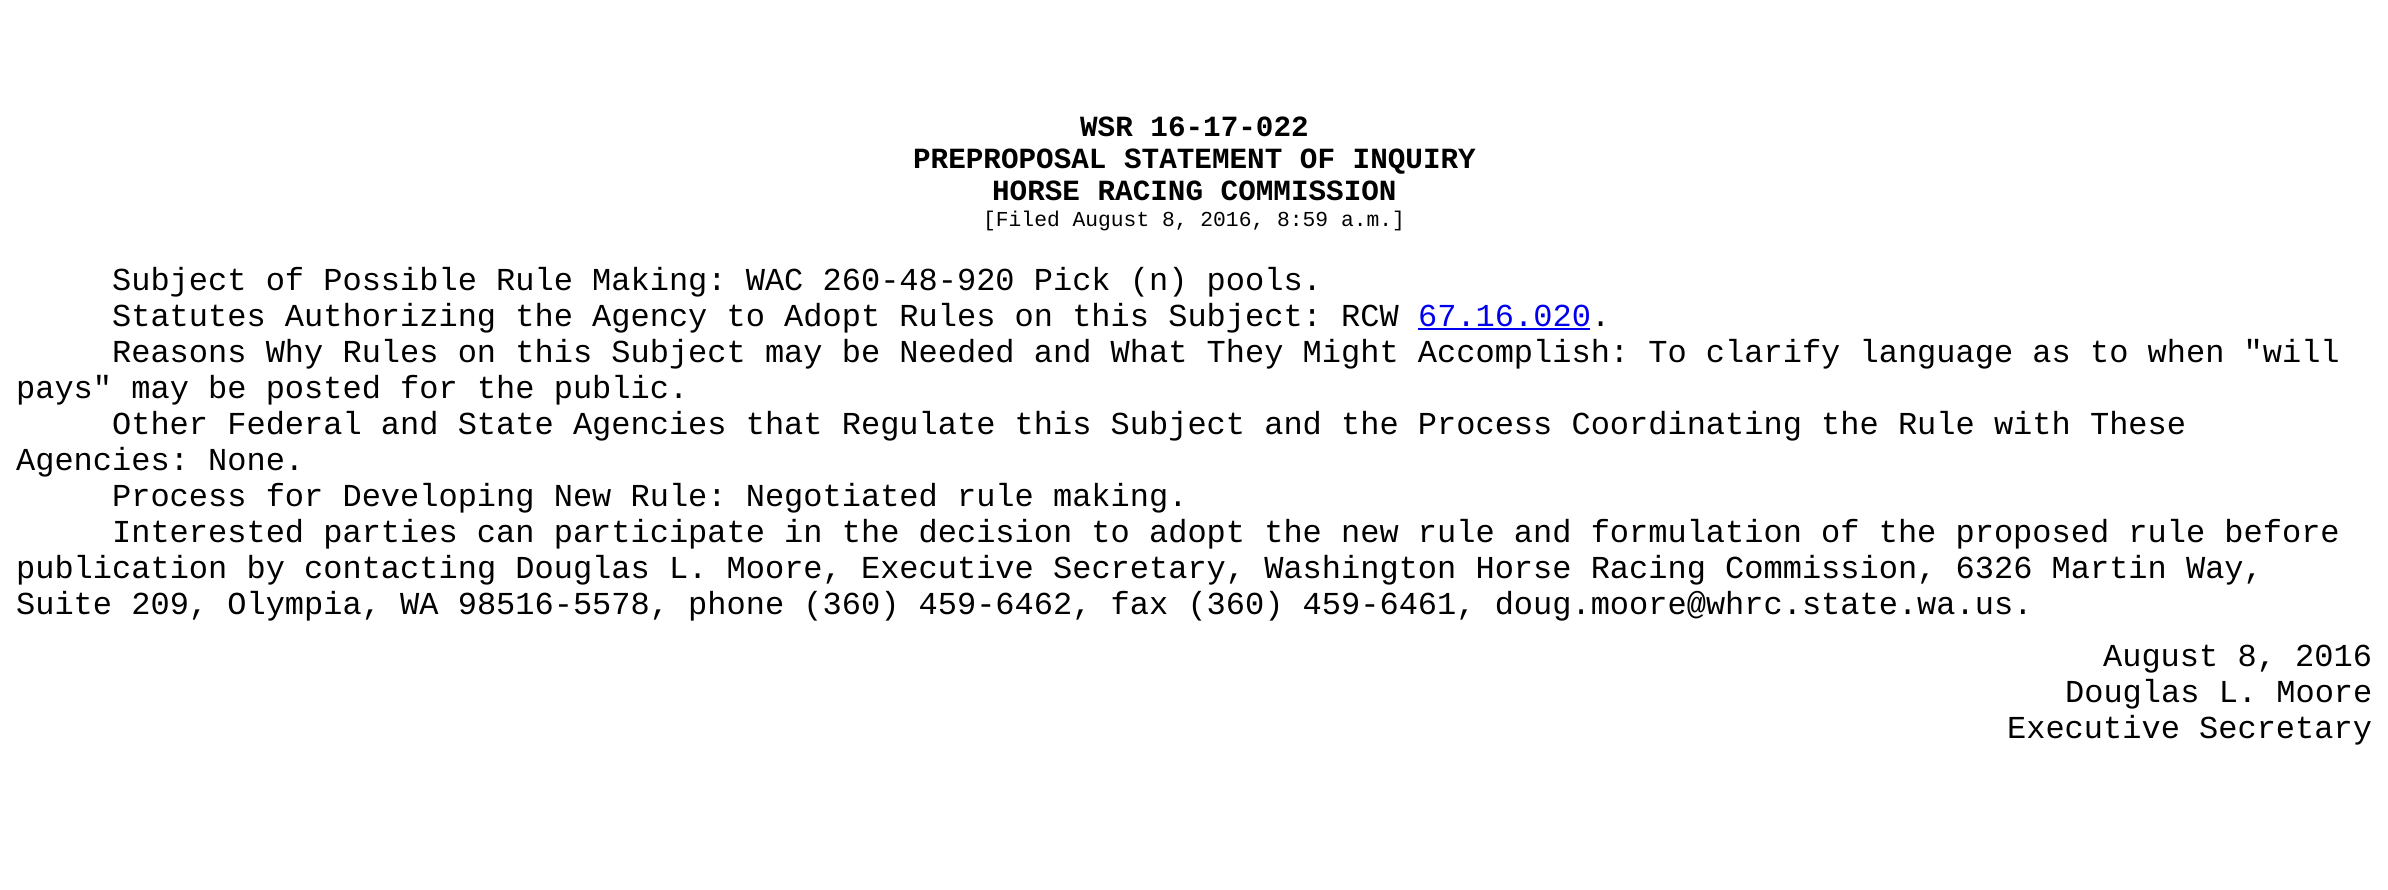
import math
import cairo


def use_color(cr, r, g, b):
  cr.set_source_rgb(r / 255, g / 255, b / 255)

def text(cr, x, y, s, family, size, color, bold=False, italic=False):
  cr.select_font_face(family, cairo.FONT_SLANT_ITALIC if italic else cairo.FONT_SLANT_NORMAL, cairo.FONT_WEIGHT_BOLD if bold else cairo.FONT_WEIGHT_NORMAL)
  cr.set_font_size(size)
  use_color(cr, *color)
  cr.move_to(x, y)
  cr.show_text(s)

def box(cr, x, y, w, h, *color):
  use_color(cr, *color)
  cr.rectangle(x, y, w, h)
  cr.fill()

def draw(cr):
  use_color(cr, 255, 255, 255)
  cr.paint()
  box(cr, 1418, 328, 172, 2, 0, 0, 238)
  text(cr, 1080, 136, "WSR 16-17-022", "Liberation Mono", 29.3, (0, 0, 0), bold=True)
  text(cr, 913, 168, "PREPROPOSAL STATEMENT OF INQUIRY", "Liberation Mono", 29.3, (0, 0, 0), bold=True)
  text(cr, 992, 200, "HORSE RACING COMMISSION", "Liberation Mono", 29.3, (0, 0, 0), bold=True)
  text(cr, 983, 226, "[Filed August 8, 2016, 8:59 a.m.]", "Liberation Mono", 21.3, (0, 0, 0))
  text(cr, 112, 290, "Subject of Possible Rule Making: WAC 260-48-920 Pick (n) pools.", "Liberation Mono", 32, (0, 0, 0))
  text(cr, 112, 326, "Statutes Authorizing the Agency to Adopt Rules on this Subject: RCW", "Liberation Mono", 32, (0, 0, 0))
  text(cr, 1418, 326, "67.16.020", "Liberation Mono", 32, (0, 0, 238))
  text(cr, 1591, 326, ".", "Liberation Mono", 32, (0, 0, 0))
  text(cr, 112, 362, "Reasons Why Rules on this Subject may be Needed and What They Might Accomplish: To clarify language as to when \"will", "Liberation Mono", 32, (0, 0, 0))
  text(cr, 16, 398, "pays\" may be posted for the public.", "Liberation Mono", 32, (0, 0, 0))
  text(cr, 112, 434, "Other Federal and State Agencies that Regulate this Subject and the Process Coordinating the Rule with These", "Liberation Mono", 32, (0, 0, 0))
  text(cr, 16, 470, "Agencies: None.", "Liberation Mono", 32, (0, 0, 0))
  text(cr, 112, 506, "Process for Developing New Rule: Negotiated rule making.", "Liberation Mono", 32, (0, 0, 0))
  text(cr, 112, 542, "Interested parties can participate in the decision to adopt the new rule and formulation of the proposed rule before", "Liberation Mono", 32, (0, 0, 0))
  text(cr, 16, 578, "publication by contacting Douglas L. Moore, Executive Secretary, Washington Horse Racing Commission, 6326 Martin Way,", "Liberation Mono", 32, (0, 0, 0))
  text(cr, 16, 614, "Suite 209, Olympia, WA 98516-5578, phone (360) 459-6462, fax (360) 459-6461, doug.moore@whrc.state.wa.us.", "Liberation Mono", 32, (0, 0, 0))
  text(cr, 2103, 666, "August 8, 2016", "Liberation Mono", 32, (0, 0, 0))
  text(cr, 2065, 702, "Douglas L. Moore", "Liberation Mono", 32, (0, 0, 0))
  text(cr, 2007, 738, "Executive Secretary", "Liberation Mono", 32, (0, 0, 0))


surface = cairo.ImageSurface(cairo.FORMAT_RGB24, 2388, 890)
cr = cairo.Context(surface)
options = cairo.FontOptions()
options.set_hint_metrics(cairo.HINT_METRICS_OFF)
options.set_hint_style(cairo.HINT_STYLE_NONE)
cr.set_font_options(options)
cr.set_miter_limit(4)
draw(cr)
surface.write_to_png("out.png")
